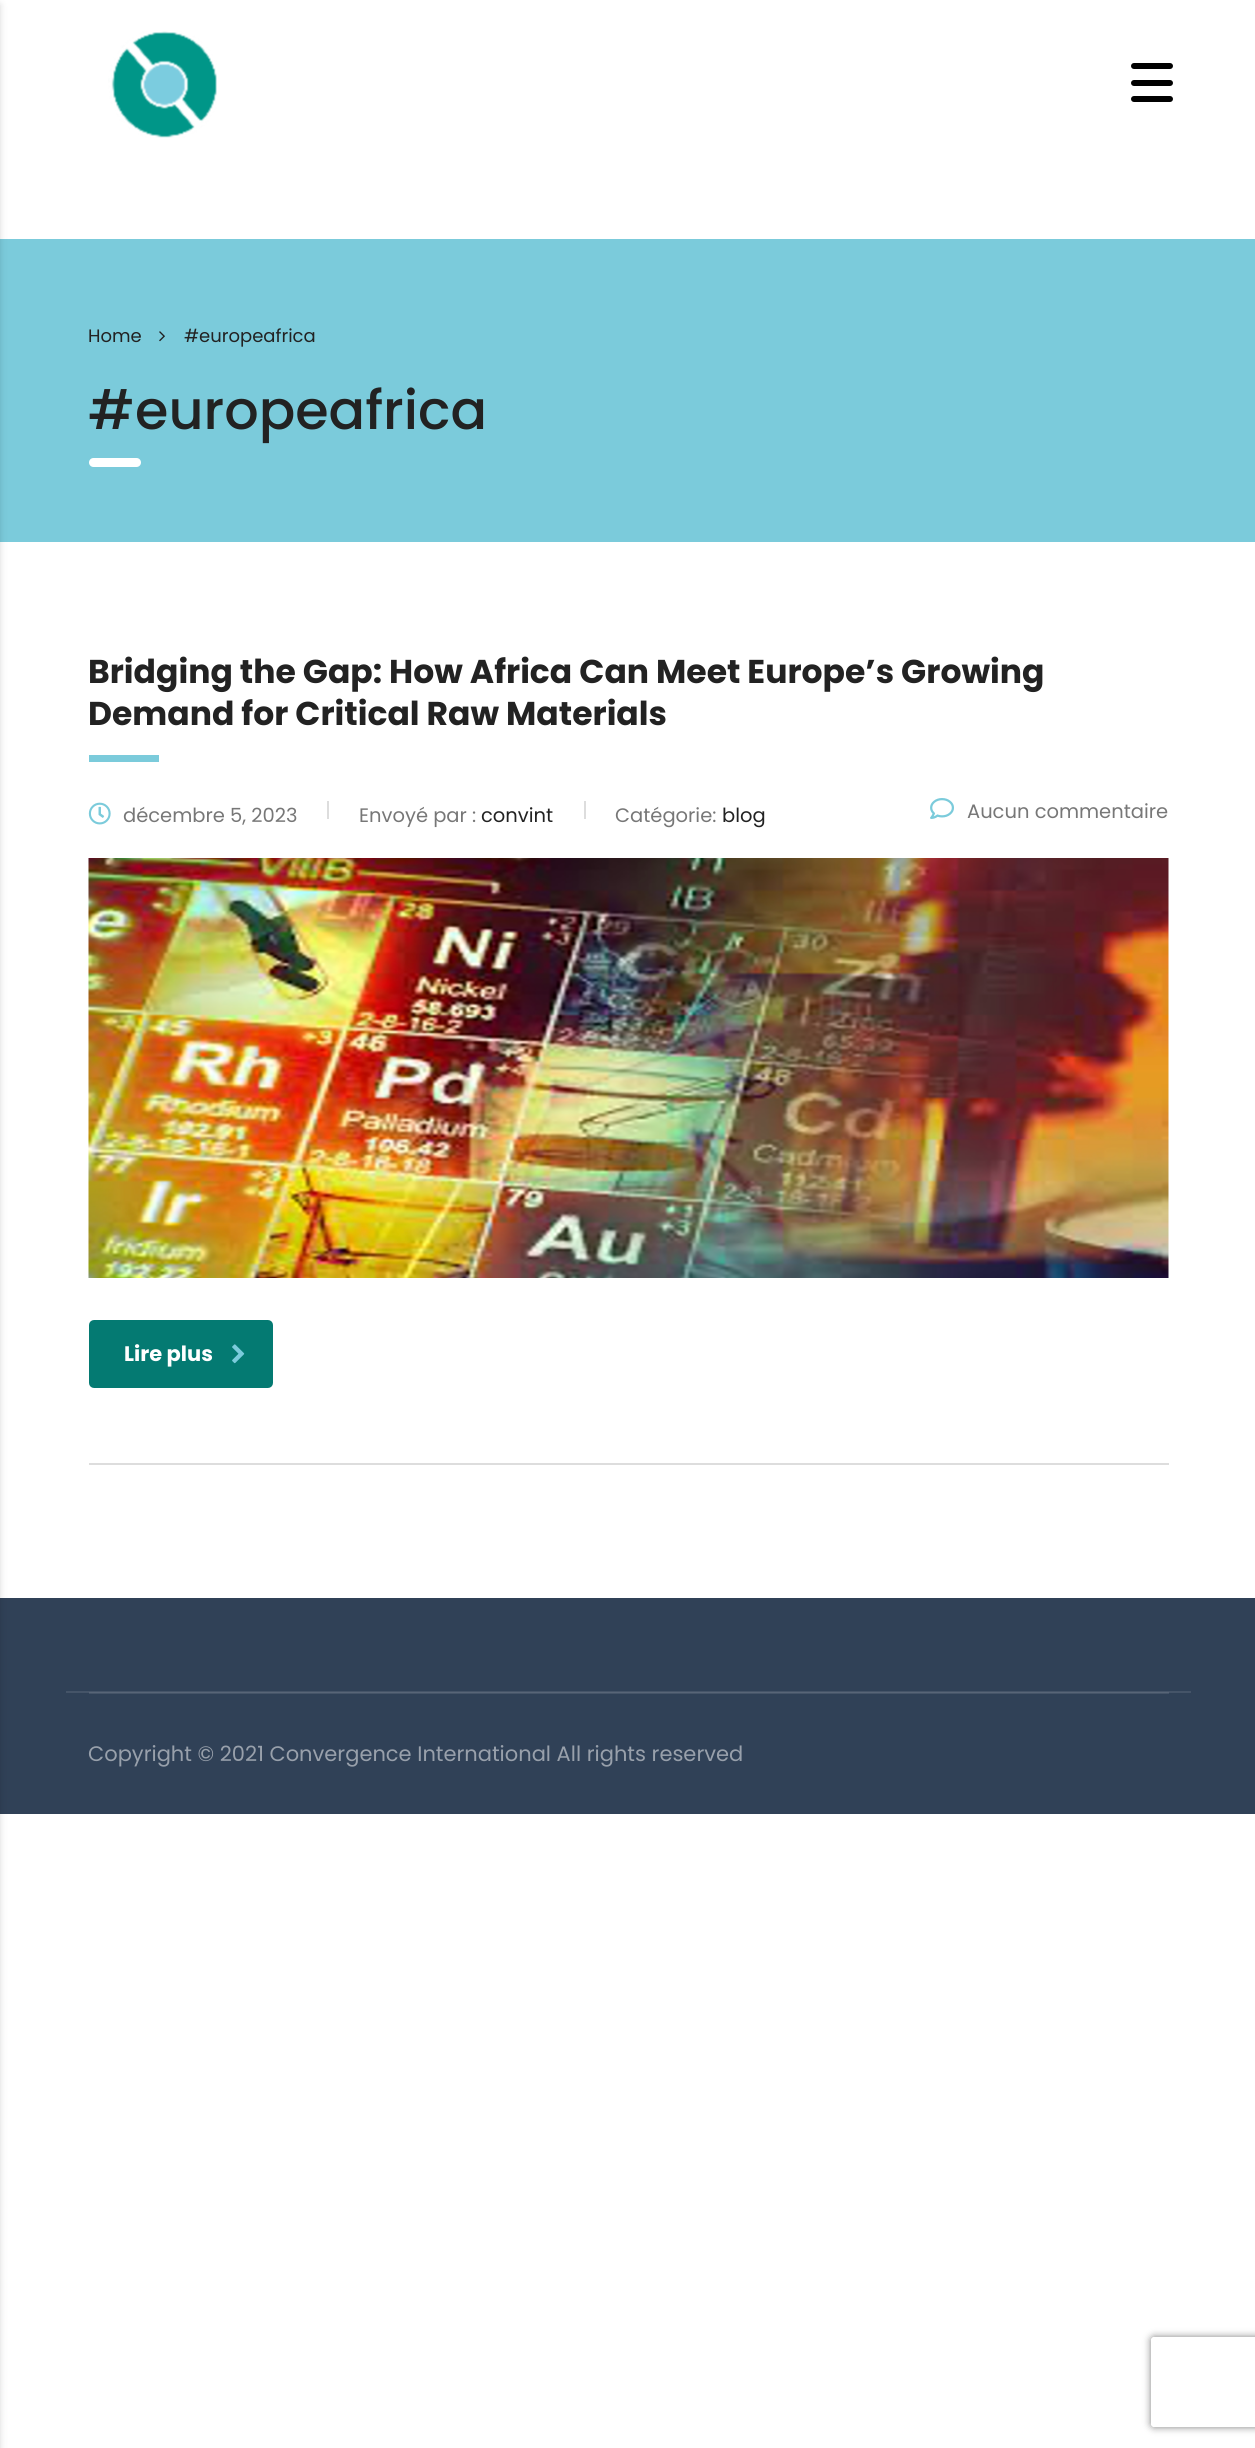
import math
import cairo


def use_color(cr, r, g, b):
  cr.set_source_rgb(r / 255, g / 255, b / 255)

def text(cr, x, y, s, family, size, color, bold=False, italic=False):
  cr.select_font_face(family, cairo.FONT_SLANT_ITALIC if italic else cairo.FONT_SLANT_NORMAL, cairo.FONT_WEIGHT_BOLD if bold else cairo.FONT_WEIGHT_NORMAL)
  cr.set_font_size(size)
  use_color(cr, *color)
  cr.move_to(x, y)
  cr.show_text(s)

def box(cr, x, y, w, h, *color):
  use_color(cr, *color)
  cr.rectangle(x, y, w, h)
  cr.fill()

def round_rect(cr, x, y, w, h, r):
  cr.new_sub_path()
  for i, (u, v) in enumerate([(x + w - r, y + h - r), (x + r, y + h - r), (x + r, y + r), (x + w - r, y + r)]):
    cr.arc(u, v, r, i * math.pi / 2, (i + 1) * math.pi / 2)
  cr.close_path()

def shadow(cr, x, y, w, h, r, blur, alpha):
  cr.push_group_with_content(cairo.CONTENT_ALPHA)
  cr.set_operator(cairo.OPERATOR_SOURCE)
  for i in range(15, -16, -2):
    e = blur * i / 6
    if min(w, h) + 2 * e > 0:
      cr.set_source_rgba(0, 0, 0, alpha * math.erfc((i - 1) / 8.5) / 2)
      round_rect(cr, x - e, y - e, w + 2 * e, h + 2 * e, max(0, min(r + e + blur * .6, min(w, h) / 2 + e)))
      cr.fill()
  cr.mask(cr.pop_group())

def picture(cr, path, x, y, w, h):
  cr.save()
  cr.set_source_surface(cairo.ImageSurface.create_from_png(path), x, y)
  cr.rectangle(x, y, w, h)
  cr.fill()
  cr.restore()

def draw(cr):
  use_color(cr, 255, 255, 255)
  cr.paint()
  box(cr, 0, 239, 1255, 303, 123, 203, 219)
  box(cr, 0, 1598, 1255, 216, 48, 65, 87)
  use_color(cr, 0, 0, 0)
  shadow(cr, -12, 5, 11, 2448, 0, 4, 0.2)
  picture(cr, "img_01.png", 108, 31, 109, 107)
  use_color(cr, 1, 1, 1)
  round_rect(cr, 1131, 63, 42, 6, 3)
  cr.fill()
  round_rect(cr, 1131, 80, 42, 6, 3)
  cr.fill()
  round_rect(cr, 1131, 96, 42, 6, 3)
  cr.fill()
  picture(cr, "img_02.png", 159, 331, 6, 11)
  use_color(cr, 255, 255, 255)
  round_rect(cr, 89, 458, 52, 9, 4.5)
  cr.fill()
  box(cr, 89, 1463, 1080, 2, 221, 221, 221)
  box(cr, 89, 755, 70, 7, 123, 203, 219)
  picture(cr, "img_03.png", 88, 802, 23, 23)
  box(cr, 327, 801, 2, 18, 221, 221, 221)
  box(cr, 584, 801, 2, 18, 221, 221, 221)
  picture(cr, "img_04.png", 930, 798, 24, 21)
  picture(cr, "img_05.png", 88, 858, 1081, 420)
  use_color(cr, 4, 122, 114)
  round_rect(cr, 91.5, 1322.5, 179, 63, 2.5)
  cr.fill_preserve()
  cr.set_line_width(5)
  cr.stroke()
  picture(cr, "img_06.png", 232, 1344, 13, 20)
  box(cr, 89, 1693, 1080, 1, 69, 84, 104)
  box(cr, 66, 1691, 1125, 2, 69, 84, 104)
  box(cr, 89, 1692, 1080, 1, 88, 101, 119)
  cr.save()
  cr.set_fill_rule(cairo.FILL_RULE_EVEN_ODD)
  cr.new_path()
  cr.move_to(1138, 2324)
  cr.line_to(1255, 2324)
  cr.line_to(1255, 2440)
  cr.line_to(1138, 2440)
  cr.close_path()
  cr.move_to(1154, 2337)
  cr.line_to(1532, 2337)
  cr.curve_to(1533.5, 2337, 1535, 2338.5, 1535, 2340)
  cr.line_to(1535, 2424)
  cr.curve_to(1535, 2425.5, 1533.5, 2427, 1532, 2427)
  cr.line_to(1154, 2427)
  cr.curve_to(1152.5, 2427, 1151, 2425.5, 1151, 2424)
  cr.line_to(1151, 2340)
  cr.curve_to(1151, 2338.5, 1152.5, 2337, 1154, 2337)
  cr.close_path()
  cr.clip()
  use_color(cr, 128, 128, 128)
  shadow(cr, 1151, 2337, 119, 90, 3, 4, 1)
  cr.restore()
  text(cr, 88, 342, "Home", "Poppins", 18, (34, 34, 34))
  text(cr, 184, 342, "#europeafrica", "Poppins", 18, (34, 34, 34))
  text(cr, 88, 429, "#europeafrica", "Poppins Medium", 54, (34, 34, 34))
  text(cr, 88, 683, "Bridging the Gap: How Africa Can Meet Europe’s Growing", "Poppins", 33, (34, 34, 34), bold=True)
  text(cr, 88, 725, "Demand for Critical Raw Materials", "Poppins", 33, (34, 34, 34), bold=True)
  text(cr, 123, 822, "décembre 5, 2023", "Poppins", 19.5, (119, 119, 119))
  text(cr, 359, 822, "Envoyé par :", "Poppins", 19.5, (119, 119, 119))
  text(cr, 481, 822, "convint", "Poppins", 19.5, (34, 34, 34))
  text(cr, 615, 822, "Catégorie:", "Poppins", 19.5, (119, 119, 119))
  text(cr, 722, 822, "blog", "Poppins", 19.5, (34, 34, 34))
  text(cr, 967, 818, "Aucun commentaire", "Poppins", 19.5, (119, 119, 119))
  text(cr, 124, 1361, "Lire plus", "Poppins", 21, (255, 255, 255), bold=True)
  text(cr, 88, 1761, "Copyright © 2021 Convergence International All rights reserved", "Poppins", 21, (152, 160, 171))


surface = cairo.ImageSurface(cairo.FORMAT_RGB24, 1255, 2448)
cr = cairo.Context(surface)
options = cairo.FontOptions()
options.set_hint_metrics(cairo.HINT_METRICS_OFF)
options.set_hint_style(cairo.HINT_STYLE_NONE)
cr.set_font_options(options)
cr.set_miter_limit(4)
draw(cr)
surface.write_to_png("out.png")
